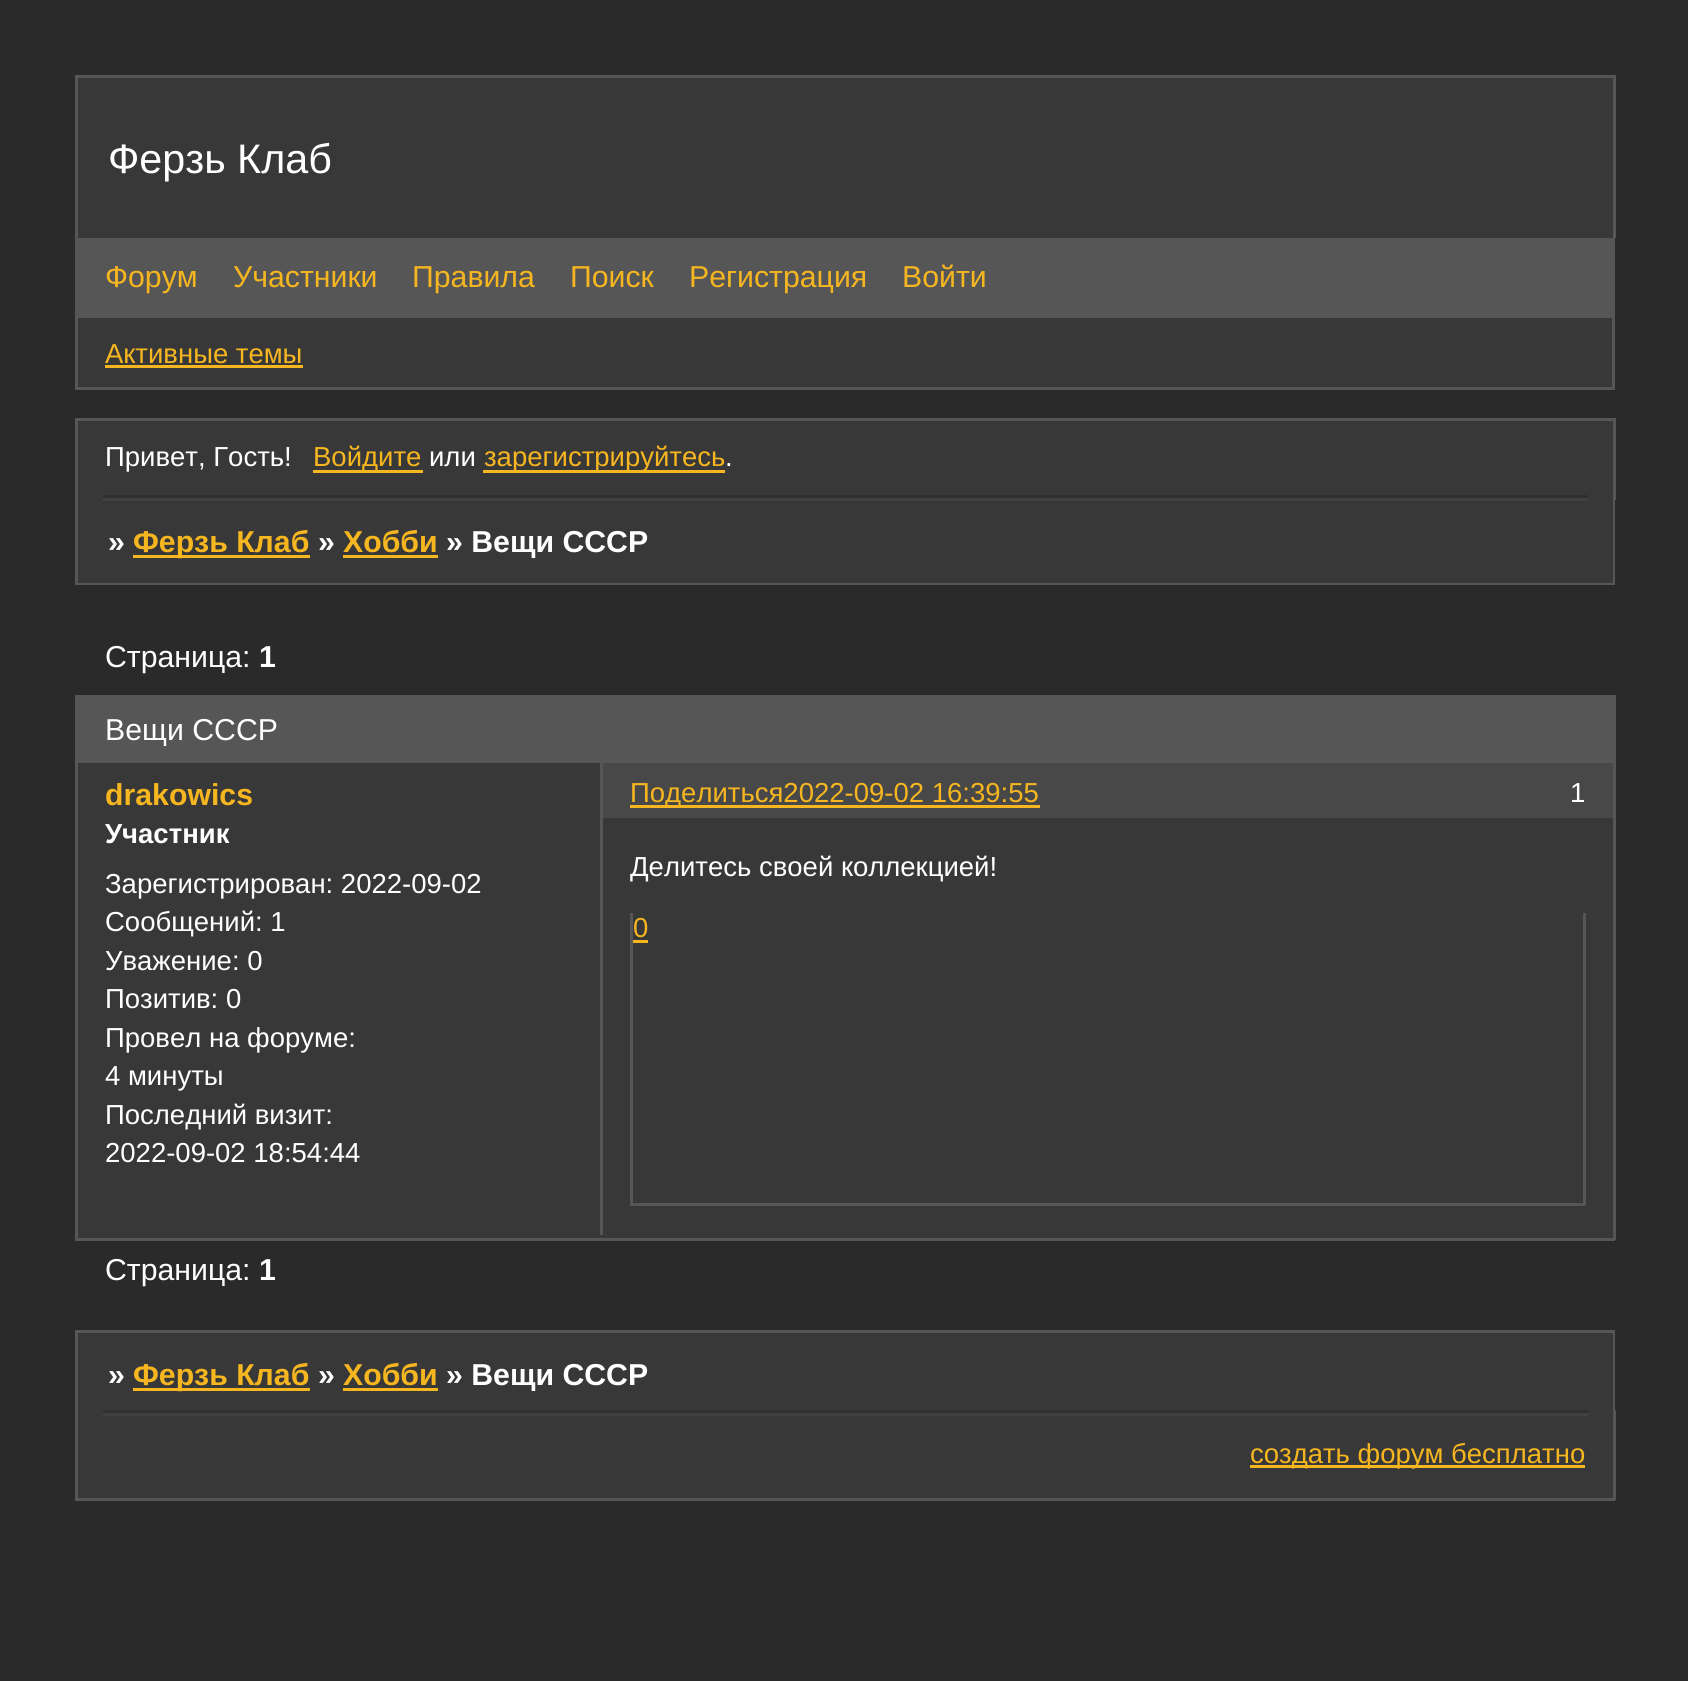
import math
import cairo


def use_color(cr, r, g, b):
  cr.set_source_rgb(r / 255, g / 255, b / 255)

def text(cr, x, y, s, family, size, color, bold=False, italic=False):
  cr.select_font_face(family, cairo.FONT_SLANT_ITALIC if italic else cairo.FONT_SLANT_NORMAL, cairo.FONT_WEIGHT_BOLD if bold else cairo.FONT_WEIGHT_NORMAL)
  cr.set_font_size(size)
  use_color(cr, *color)
  cr.move_to(x, y)
  cr.show_text(s)

def box(cr, x, y, w, h, *color):
  use_color(cr, *color)
  cr.rectangle(x, y, w, h)
  cr.fill()

def draw(cr):
  use_color(cr, 42, 42, 42)
  cr.paint()
  box(cr, 78, 78, 1535, 160, 56, 56, 56)
  box(cr, 75, 75, 1540, 3, 86, 86, 86)
  box(cr, 1613, 75, 3, 163, 86, 86, 86)
  box(cr, 75, 75, 3, 163, 86, 86, 86)
  box(cr, 75, 238, 1540, 77, 86, 86, 86)
  use_color(cr, 56, 56, 56)
  cr.rectangle(76.5, 316.5, 1537, 72)
  cr.fill_preserve()
  use_color(cr, 86, 86, 86)
  cr.set_line_width(3)
  cr.stroke()
  box(cr, 105, 365, 198, 3, 246, 182, 32)
  box(cr, 78, 421, 1535, 162, 56, 56, 56)
  box(cr, 75, 418, 1540, 3, 86, 86, 86)
  box(cr, 1613, 418, 3, 82, 86, 86, 86)
  box(cr, 75, 418, 3, 82, 86, 86, 86)
  box(cr, 313, 470, 110, 3, 246, 182, 32)
  box(cr, 483, 470, 242, 3, 246, 182, 32)
  box(cr, 103, 495, 1485, 3, 48, 48, 48)
  box(cr, 103, 498, 1485, 3, 64, 64, 64)
  box(cr, 1613, 495, 2, 90, 86, 86, 86)
  box(cr, 75, 583, 1540, 2, 86, 86, 86)
  box(cr, 75, 495, 3, 90, 86, 86, 86)
  box(cr, 133, 555, 177, 3, 246, 182, 32)
  box(cr, 343, 555, 95, 3, 246, 182, 32)
  box(cr, 75, 695, 1541, 65, 86, 86, 86)
  box(cr, 600, 763, 3, 57, 86, 86, 86)
  box(cr, 78, 818, 1535, 420, 56, 56, 56)
  box(cr, 75, 760, 1540, 3, 86, 86, 86)
  box(cr, 1613, 760, 3, 480, 86, 86, 86)
  box(cr, 75, 1238, 1540, 3, 86, 86, 86)
  box(cr, 75, 760, 3, 60, 86, 86, 86)
  box(cr, 75, 818, 3, 422, 86, 86, 86)
  box(cr, 600, 818, 3, 417, 86, 86, 86)
  box(cr, 1583, 913, 3, 292, 86, 86, 86)
  box(cr, 630, 1203, 955, 3, 86, 86, 86)
  box(cr, 630, 913, 3, 292, 86, 86, 86)
  box(cr, 633, 940, 15, 3, 246, 182, 32)
  box(cr, 78, 763, 522, 55, 56, 56, 56)
  box(cr, 603, 763, 1010, 55, 72, 72, 72)
  box(cr, 630, 805, 410, 3, 246, 182, 32)
  box(cr, 75, 1330, 1540, 3, 86, 86, 86)
  box(cr, 1613, 1410, 3, 90, 86, 86, 86)
  box(cr, 1613, 1330, 2, 85, 86, 86, 86)
  box(cr, 75, 1498, 1540, 3, 86, 86, 86)
  box(cr, 75, 1410, 3, 90, 86, 86, 86)
  box(cr, 75, 1330, 3, 85, 86, 86, 86)
  box(cr, 78, 1333, 1535, 165, 56, 56, 56)
  box(cr, 133, 1388, 177, 3, 246, 182, 32)
  box(cr, 343, 1388, 95, 3, 246, 182, 32)
  box(cr, 103, 1410, 1485, 3, 48, 48, 48)
  box(cr, 103, 1413, 1485, 3, 64, 64, 64)
  box(cr, 1250, 1465, 335, 3, 246, 182, 32)
  text(cr, 108, 173, "Ферзь Клаб", "Liberation Sans", 41.25, (255, 255, 255))
  text(cr, 105, 287, "Форум", "Liberation Sans", 30.25, (246, 182, 32))
  text(cr, 233, 287, "Участники", "Liberation Sans", 30.25, (246, 182, 32))
  text(cr, 412, 287, "Правила", "Liberation Sans", 30.25, (246, 182, 32))
  text(cr, 570, 287, "Поиск", "Liberation Sans", 30.25, (246, 182, 32))
  text(cr, 689, 287, "Регистрация", "Liberation Sans", 30.25, (246, 182, 32))
  text(cr, 902, 287, "Войти", "Liberation Sans", 30.25, (246, 182, 32))
  text(cr, 105, 363, "Активные темы", "Liberation Sans", 27.5, (246, 182, 32))
  text(cr, 105, 466, "Привет, Гость!", "Liberation Sans", 27.5, (255, 255, 255))
  text(cr, 313, 466, "Войдите", "Liberation Sans", 27.5, (246, 182, 32))
  text(cr, 429, 466, "или", "Liberation Sans", 27.5, (255, 255, 255))
  text(cr, 484, 466, "зарегистрируйтесь", "Liberation Sans", 27.5, (246, 182, 32))
  text(cr, 725, 466, ".", "Liberation Sans", 27.5, (255, 255, 255))
  text(cr, 108, 552, "»", "Liberation Sans", 30.25, (255, 255, 255), bold=True)
  text(cr, 133, 552, "Ферзь Клаб", "Liberation Sans", 30.25, (246, 182, 32), bold=True)
  text(cr, 318, 552, "»", "Liberation Sans", 30.25, (255, 255, 255), bold=True)
  text(cr, 343, 552, "Хобби", "Liberation Sans", 30.25, (246, 182, 32), bold=True)
  text(cr, 446, 552, "» Вещи СССР", "Liberation Sans", 30.25, (255, 255, 255), bold=True)
  text(cr, 105, 667, "Страница:", "Liberation Sans", 30.25, (255, 255, 255))
  text(cr, 259, 667, "1", "Liberation Sans", 30.25, (255, 255, 255), bold=True)
  text(cr, 105, 740, "Вещи СССР", "Liberation Sans", 30.25, (255, 255, 255))
  text(cr, 105, 805, "drakowics", "Liberation Sans", 30.25, (246, 182, 32), bold=True)
  text(cr, 105, 843, "Участник", "Liberation Sans", 27.5, (255, 255, 255), bold=True)
  text(cr, 105, 893, "Зарегистрирован: 2022-09-02", "Liberation Sans", 27.5, (255, 255, 255))
  text(cr, 105, 931, "Сообщений: 1", "Liberation Sans", 27.5, (255, 255, 255))
  text(cr, 105, 970, "Уважение: 0", "Liberation Sans", 27.5, (255, 255, 255))
  text(cr, 105, 1008, "Позитив: 0", "Liberation Sans", 27.5, (255, 255, 255))
  text(cr, 105, 1047, "Провел на форуме:", "Liberation Sans", 27.5, (255, 255, 255))
  text(cr, 105, 1085, "4 минуты", "Liberation Sans", 27.5, (255, 255, 255))
  text(cr, 105, 1124, "Последний визит:", "Liberation Sans", 27.5, (255, 255, 255))
  text(cr, 105, 1162, "2022-09-02 18:54:44", "Liberation Sans", 27.5, (255, 255, 255))
  text(cr, 630, 876, "Делитесь своей коллекцией!", "Liberation Sans", 27.5, (255, 255, 255))
  text(cr, 633, 937, "0", "Liberation Sans", 27.5, (246, 182, 32))
  text(cr, 630, 802, "Поделиться2022-09-02 16:39:55", "Liberation Sans", 27.5, (246, 182, 32))
  text(cr, 1570, 802, "1", "Liberation Sans", 27.5, (255, 255, 255))
  text(cr, 105, 1280, "Страница:", "Liberation Sans", 30.25, (255, 255, 255))
  text(cr, 259, 1280, "1", "Liberation Sans", 30.25, (255, 255, 255), bold=True)
  text(cr, 108, 1385, "»", "Liberation Sans", 30.25, (255, 255, 255), bold=True)
  text(cr, 133, 1385, "Ферзь Клаб", "Liberation Sans", 30.25, (246, 182, 32), bold=True)
  text(cr, 318, 1385, "»", "Liberation Sans", 30.25, (255, 255, 255), bold=True)
  text(cr, 343, 1385, "Хобби", "Liberation Sans", 30.25, (246, 182, 32), bold=True)
  text(cr, 446, 1385, "» Вещи СССР", "Liberation Sans", 30.25, (255, 255, 255), bold=True)
  text(cr, 1250, 1463, "создать форум бесплатно", "Liberation Sans", 27.5, (246, 182, 32))


surface = cairo.ImageSurface(cairo.FORMAT_RGB24, 1688, 1681)
cr = cairo.Context(surface)
options = cairo.FontOptions()
options.set_hint_metrics(cairo.HINT_METRICS_OFF)
options.set_hint_style(cairo.HINT_STYLE_NONE)
cr.set_font_options(options)
cr.set_miter_limit(4)
draw(cr)
surface.write_to_png("out.png")
